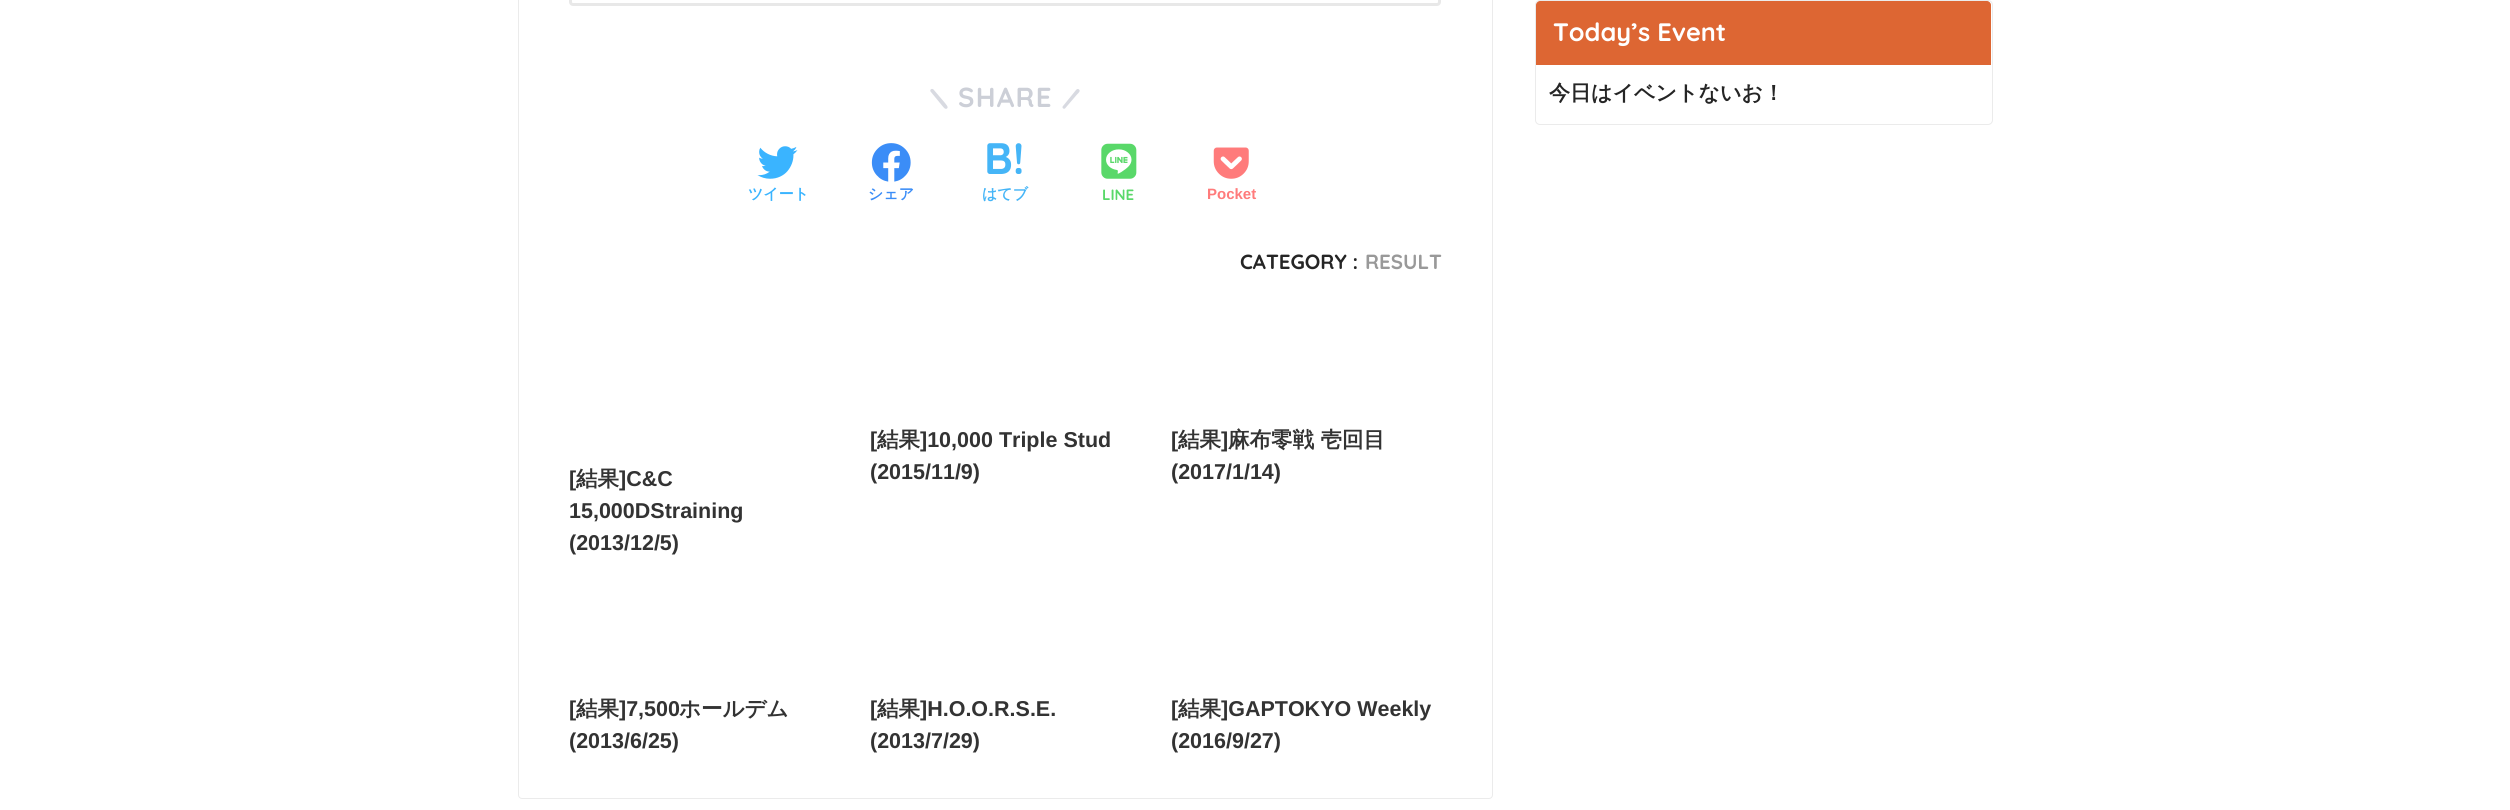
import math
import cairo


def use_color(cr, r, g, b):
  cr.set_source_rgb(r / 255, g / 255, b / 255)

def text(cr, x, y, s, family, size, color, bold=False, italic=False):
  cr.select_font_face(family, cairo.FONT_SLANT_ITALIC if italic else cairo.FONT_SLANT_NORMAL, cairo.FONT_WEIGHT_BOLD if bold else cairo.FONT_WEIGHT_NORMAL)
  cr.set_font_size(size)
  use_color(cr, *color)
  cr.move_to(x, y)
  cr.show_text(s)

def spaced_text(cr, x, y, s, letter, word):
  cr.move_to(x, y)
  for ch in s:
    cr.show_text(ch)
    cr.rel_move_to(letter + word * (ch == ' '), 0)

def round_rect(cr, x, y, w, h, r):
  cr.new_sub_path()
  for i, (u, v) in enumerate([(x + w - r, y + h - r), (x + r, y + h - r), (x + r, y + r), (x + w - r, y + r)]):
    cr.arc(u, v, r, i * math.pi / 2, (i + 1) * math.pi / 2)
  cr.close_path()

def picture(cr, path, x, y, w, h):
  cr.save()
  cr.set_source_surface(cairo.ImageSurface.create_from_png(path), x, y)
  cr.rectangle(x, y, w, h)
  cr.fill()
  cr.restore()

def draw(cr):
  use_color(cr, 255, 255, 255)
  cr.paint()
  round_rect(cr, 1535.5, 0.5, 457, 124, 4.5)
  use_color(cr, 235, 235, 235)
  cr.set_line_width(1)
  cr.stroke()
  use_color(cr, 221, 102, 51)
  cr.new_path()
  cr.move_to(1540, 1)
  cr.line_to(1987, 1)
  cr.curve_to(1989, 1, 1991, 3, 1991, 5)
  cr.line_to(1991, 65)
  cr.line_to(1536, 65)
  cr.line_to(1536, 5)
  cr.curve_to(1536, 3, 1538, 1, 1540, 1)
  cr.close_path()
  cr.fill()
  round_rect(cr, 518.5, -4.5, 974, 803, 3.5)
  use_color(cr, 235, 235, 235)
  cr.stroke()
  round_rect(cr, 570.5, -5.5, 869, 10, 2.5)
  use_color(cr, 232, 232, 232)
  cr.set_line_width(3)
  cr.stroke()
  use_color(cr, 216, 218, 225)
  cr.new_path()
  cr.move_to(933.5, 89.5)
  cr.line_to(945, 103)
  cr.curve_to(945.5, 104, 949, 107, 947, 108.5)
  cr.curve_to(945, 110, 943, 106.5, 942, 105.5)
  cr.line_to(930.5, 91.5)
  cr.curve_to(929.5, 89.5, 932, 88, 933.5, 89.5)
  cr.close_path()
  cr.fill()
  cr.new_path()
  cr.move_to(1063, 106)
  cr.line_to(1074, 92.5)
  cr.curve_to(1075, 91.5, 1077, 87.5, 1079, 89.5)
  cr.curve_to(1081, 91, 1078, 93.5, 1077, 94.5)
  cr.line_to(1065, 108.5)
  cr.curve_to(1063.5, 109.5, 1061.5, 107.5, 1063, 106)
  cr.close_path()
  cr.fill()
  picture(cr, "img_01.png", 757, 146, 41, 33)
  picture(cr, "img_02.png", 871, 143, 40, 39)
  picture(cr, "img_03.png", 1101, 143, 36, 36)
  picture(cr, "img_04.png", 1213, 147, 36, 32)
  text(cr, 1553, 41, "Today’s Event", "Quicksand", 25.25, (255, 255, 255), bold=True)
  text(cr, 1549, 100, "今日はイベントないお！", "WenQuanYi Zen Hei", 21, (37, 37, 37), bold=True)
  cr.select_font_face("Quicksand", cairo.FONT_SLANT_NORMAL, cairo.FONT_WEIGHT_BOLD)
  cr.set_font_size(27.5)
  use_color(cr, 204, 207, 215)
  spaced_text(cr, 958, 107, "SHARE", 1.25, 0)
  text(cr, 748, 199, "ツイート", "WenQuanYi Zen Hei", 15, (58, 180, 255), bold=True)
  text(cr, 868, 199, "シェア", "WenQuanYi Zen Hei", 15, (59, 141, 247), bold=True)
  text(cr, 984, 174, "B!", "Quicksand", 44, (69, 181, 247), bold=True)
  text(cr, 982, 199, "はてブ", "WenQuanYi Zen Hei", 15, (69, 181, 247), bold=True)
  text(cr, 1102, 200, "LINE", "Quicksand", 15, (89, 216, 105), bold=True)
  text(cr, 1207, 199, "Pocket", "Liberation Sans", 15, (255, 123, 123), bold=True)
  text(cr, 1240, 269, "CATEGORY :", "Quicksand", 20.5, (37, 37, 37), bold=True)
  text(cr, 1365, 269, "RESULT", "Quicksand", 20.5, (153, 153, 153), bold=True)
  text(cr, 870, 447, "[", "Liberation Sans", 21.5, (51, 51, 51), bold=True)
  text(cr, 877, 447, "結果", "WenQuanYi Zen Hei", 21.5, (51, 51, 51), bold=True)
  text(cr, 920, 447, "]10,000 Triple Stud", "Liberation Sans", 21.5, (51, 51, 51), bold=True)
  text(cr, 870, 479, "(2015/11/9)", "Liberation Sans", 21.5, (51, 51, 51), bold=True)
  text(cr, 1171, 447, "[", "Liberation Sans", 21.5, (51, 51, 51), bold=True)
  text(cr, 1178, 447, "結果", "WenQuanYi Zen Hei", 21.5, (51, 51, 51), bold=True)
  text(cr, 1221, 447, "]", "Liberation Sans", 21.5, (51, 51, 51), bold=True)
  text(cr, 1228, 447, "麻布零戦 壱回目", "WenQuanYi Zen Hei", 21.5, (51, 51, 51), bold=True)
  text(cr, 1171, 479, "(2017/1/14)", "Liberation Sans", 21.5, (51, 51, 51), bold=True)
  text(cr, 569, 486, "[", "Liberation Sans", 21.5, (51, 51, 51), bold=True)
  text(cr, 576, 486, "結果", "WenQuanYi Zen Hei", 21.5, (51, 51, 51), bold=True)
  text(cr, 619, 486, "]C&C", "Liberation Sans", 21.5, (51, 51, 51), bold=True)
  text(cr, 569, 518, "15,000DStraining", "Liberation Sans", 21.5, (51, 51, 51), bold=True)
  text(cr, 569, 550, "(2013/12/5)", "Liberation Sans", 21.5, (51, 51, 51), bold=True)
  text(cr, 569, 716, "[", "Liberation Sans", 21.5, (51, 51, 51), bold=True)
  text(cr, 576, 716, "結果", "WenQuanYi Zen Hei", 21.5, (51, 51, 51), bold=True)
  text(cr, 619, 716, "]7,500", "Liberation Sans", 21.5, (51, 51, 51), bold=True)
  text(cr, 679, 716, "ホールデム", "WenQuanYi Zen Hei", 21.5, (51, 51, 51), bold=True)
  text(cr, 569, 748, "(2013/6/25)", "Liberation Sans", 21.5, (51, 51, 51), bold=True)
  text(cr, 870, 716, "[", "Liberation Sans", 21.5, (51, 51, 51), bold=True)
  text(cr, 877, 716, "結果", "WenQuanYi Zen Hei", 21.5, (51, 51, 51), bold=True)
  text(cr, 920, 716, "]H.O.O.R.S.E.", "Liberation Sans", 21.5, (51, 51, 51), bold=True)
  text(cr, 870, 748, "(2013/7/29)", "Liberation Sans", 21.5, (51, 51, 51), bold=True)
  text(cr, 1171, 716, "[", "Liberation Sans", 21.5, (51, 51, 51), bold=True)
  text(cr, 1178, 716, "結果", "WenQuanYi Zen Hei", 21.5, (51, 51, 51), bold=True)
  text(cr, 1221, 716, "]GAPTOKYO Weekly", "Liberation Sans", 21.5, (51, 51, 51), bold=True)
  text(cr, 1171, 748, "(2016/9/27)", "Liberation Sans", 21.5, (51, 51, 51), bold=True)


surface = cairo.ImageSurface(cairo.FORMAT_RGB24, 2510, 810)
cr = cairo.Context(surface)
options = cairo.FontOptions()
options.set_hint_metrics(cairo.HINT_METRICS_OFF)
options.set_hint_style(cairo.HINT_STYLE_NONE)
cr.set_font_options(options)
cr.set_miter_limit(4)
draw(cr)
surface.write_to_png("out.png")
